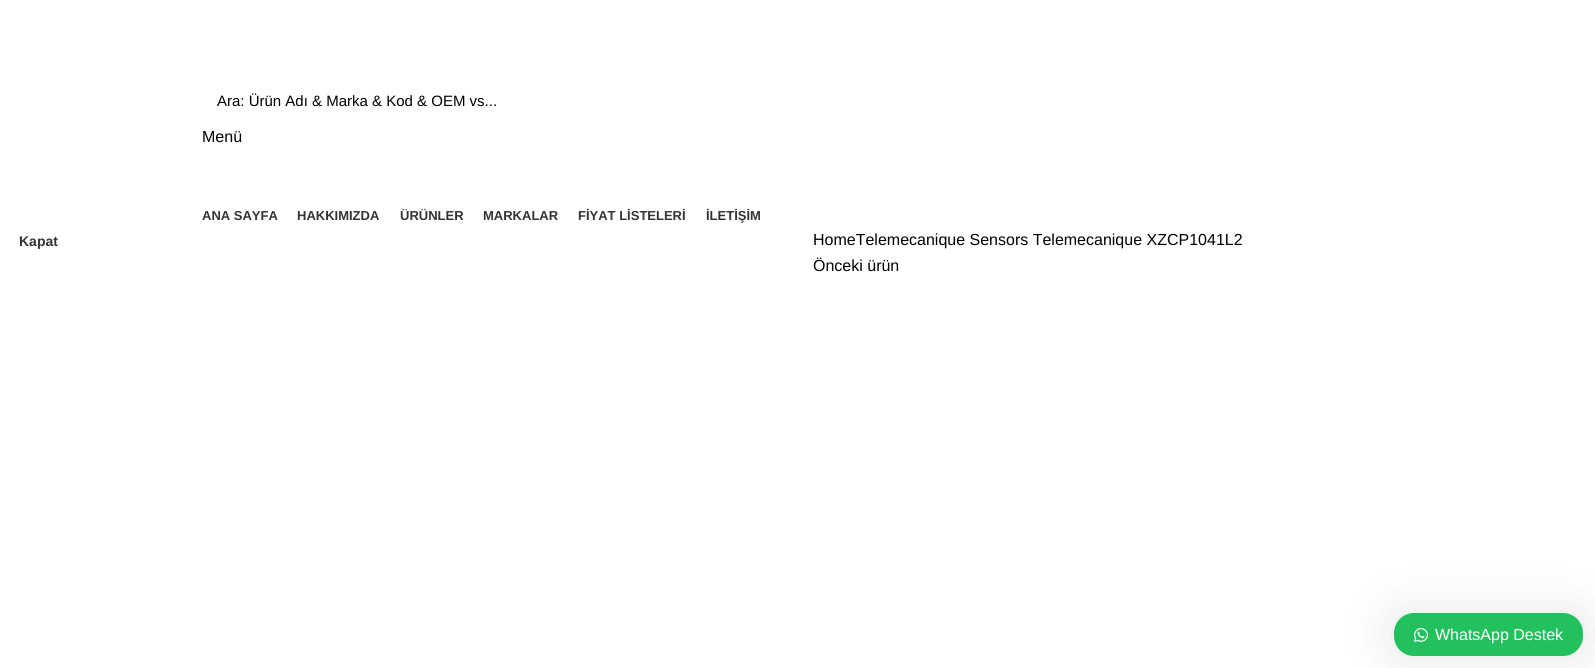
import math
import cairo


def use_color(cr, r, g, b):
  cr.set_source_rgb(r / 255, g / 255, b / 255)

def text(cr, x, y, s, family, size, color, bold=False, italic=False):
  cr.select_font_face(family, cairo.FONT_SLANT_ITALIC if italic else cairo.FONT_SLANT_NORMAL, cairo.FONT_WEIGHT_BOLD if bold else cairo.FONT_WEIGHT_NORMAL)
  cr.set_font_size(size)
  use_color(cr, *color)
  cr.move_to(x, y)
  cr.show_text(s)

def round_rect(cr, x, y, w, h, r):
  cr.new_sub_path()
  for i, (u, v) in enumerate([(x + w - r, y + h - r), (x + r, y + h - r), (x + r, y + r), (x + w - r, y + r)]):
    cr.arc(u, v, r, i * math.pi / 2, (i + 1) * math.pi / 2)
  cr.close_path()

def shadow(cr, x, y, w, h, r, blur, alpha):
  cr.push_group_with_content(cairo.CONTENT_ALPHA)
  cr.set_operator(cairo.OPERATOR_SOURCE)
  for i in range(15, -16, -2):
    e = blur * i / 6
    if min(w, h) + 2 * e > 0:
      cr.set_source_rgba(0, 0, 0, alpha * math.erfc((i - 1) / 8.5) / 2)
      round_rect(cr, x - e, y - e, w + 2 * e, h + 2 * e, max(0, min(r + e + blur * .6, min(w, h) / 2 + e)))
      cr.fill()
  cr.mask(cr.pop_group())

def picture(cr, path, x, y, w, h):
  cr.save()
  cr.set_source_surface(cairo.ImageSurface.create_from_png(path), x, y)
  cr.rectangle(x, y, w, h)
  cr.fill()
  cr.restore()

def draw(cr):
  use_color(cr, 255, 255, 255)
  cr.paint()
  use_color(cr, 0, 0, 0)
  shadow(cr, 1394, 613, 189, 43, 20, 25, 0.1)
  use_color(cr, 34, 193, 94)
  round_rect(cr, 1394, 613, 189, 43, 20)
  cr.fill()
  picture(cr, "img_01.png", 1414, 628, 14, 14)
  text(cr, 217, 106, "Ara: Ürün Adı & Marka & Kod & OEM vs...", "Liberation Sans", 15, (0, 0, 0))
  text(cr, 202, 142, "Menü", "Liberation Sans", 16, (0, 0, 0))
  text(cr, 202, 220, "ANA SAYFA", "Liberation Sans", 13, (51, 51, 51), bold=True)
  text(cr, 297, 220, "HAKKIMIZDA", "Liberation Sans", 13, (51, 51, 51), bold=True)
  text(cr, 400, 220, "ÜRÜNLER", "Liberation Sans", 13, (51, 51, 51), bold=True)
  text(cr, 483, 220, "MARKALAR", "Liberation Sans", 13, (51, 51, 51), bold=True)
  text(cr, 578, 220, "FİYAT LİSTELERİ", "Liberation Sans", 13, (51, 51, 51), bold=True)
  text(cr, 706, 220, "İLETİŞİM", "Liberation Sans", 13, (51, 51, 51), bold=True)
  text(cr, 19, 246, "Kapat", "Liberation Sans", 14, (51, 51, 51), bold=True)
  text(cr, 813, 245, "HomeTelemecanique Sensors Telemecanique XZCP1041L2", "Liberation Sans", 16, (0, 0, 0))
  text(cr, 813, 271, "Önceki ürün", "Liberation Sans", 16, (0, 0, 0))
  text(cr, 1435, 640, "WhatsApp Destek", "Liberation Sans", 16, (255, 255, 255))


surface = cairo.ImageSurface(cairo.FORMAT_RGB24, 1595, 668)
cr = cairo.Context(surface)
options = cairo.FontOptions()
options.set_hint_metrics(cairo.HINT_METRICS_OFF)
options.set_hint_style(cairo.HINT_STYLE_NONE)
cr.set_font_options(options)
cr.set_miter_limit(4)
draw(cr)
surface.write_to_png("out.png")
